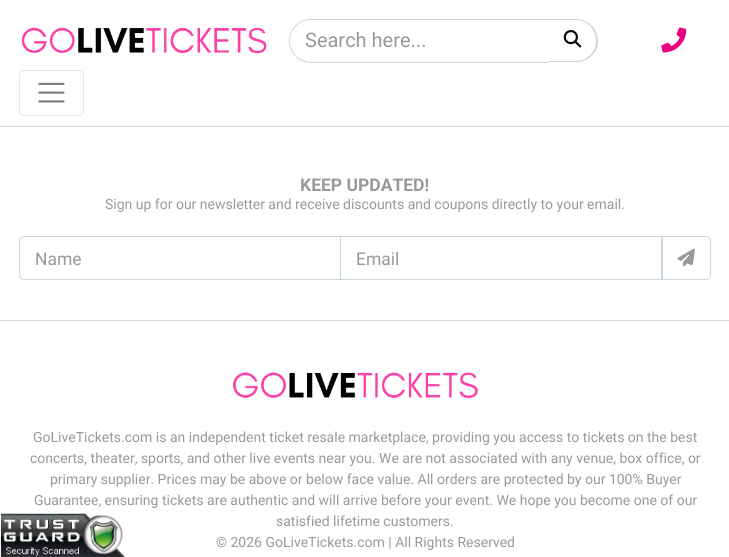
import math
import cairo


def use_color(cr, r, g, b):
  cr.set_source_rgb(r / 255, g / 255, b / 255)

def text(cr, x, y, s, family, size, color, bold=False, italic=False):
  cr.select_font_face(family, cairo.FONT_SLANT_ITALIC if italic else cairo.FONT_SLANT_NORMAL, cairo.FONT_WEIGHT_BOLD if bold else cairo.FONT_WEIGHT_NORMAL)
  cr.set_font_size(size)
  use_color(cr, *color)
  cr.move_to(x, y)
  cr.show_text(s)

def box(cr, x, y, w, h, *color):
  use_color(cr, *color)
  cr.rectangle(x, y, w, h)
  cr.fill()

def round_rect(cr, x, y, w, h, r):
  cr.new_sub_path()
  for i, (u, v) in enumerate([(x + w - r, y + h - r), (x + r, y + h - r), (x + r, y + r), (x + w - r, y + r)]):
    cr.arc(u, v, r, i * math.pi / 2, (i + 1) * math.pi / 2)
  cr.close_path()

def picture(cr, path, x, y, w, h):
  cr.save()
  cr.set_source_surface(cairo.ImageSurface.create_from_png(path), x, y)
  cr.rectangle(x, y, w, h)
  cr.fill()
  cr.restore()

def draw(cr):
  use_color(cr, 255, 255, 255)
  cr.paint()
  picture(cr, "img_01.png", 21, 27, 246, 27)
  cr.new_path()
  cr.move_to(311, 19.5)
  cr.line_to(549.5, 19.5)
  cr.line_to(549.5, 62.5)
  cr.line_to(311, 62.5)
  cr.curve_to(299, 62.5, 289.5, 53, 289.5, 41)
  cr.curve_to(289.5, 29, 299, 19.5, 311, 19.5)
  cr.close_path()
  use_color(cr, 201, 214, 223)
  cr.set_line_width(1)
  cr.stroke()
  use_color(cr, 255, 255, 255)
  cr.new_path()
  cr.move_to(549, 19)
  cr.line_to(576, 19)
  cr.curve_to(588, 19, 598, 29, 598, 41)
  cr.curve_to(598, 53, 588, 63, 576, 63)
  cr.line_to(549, 63)
  cr.close_path()
  cr.fill()
  use_color(cr, 201, 214, 223)
  cr.set_fill_rule(cairo.FILL_RULE_EVEN_ODD)
  cr.new_path()
  cr.move_to(549, 19)
  cr.line_to(576, 19)
  cr.curve_to(588, 19, 598, 29, 598, 41)
  cr.curve_to(598, 53, 588, 62, 576, 62)
  cr.line_to(549, 62)
  cr.close_path()
  cr.move_to(549, 20)
  cr.line_to(576, 20)
  cr.curve_to(587, 20, 596, 29, 596, 41)
  cr.curve_to(596, 52, 587, 61, 576, 61)
  cr.line_to(549, 61)
  cr.close_path()
  cr.fill()
  picture(cr, "img_02.png", 563, 30, 19, 18)
  picture(cr, "img_03.png", 661, 27, 26, 26)
  round_rect(cr, 19.5, 70.5, 64, 45, 4.5)
  use_color(cr, 230, 230, 230)
  cr.stroke()
  picture(cr, "img_04.png", 38, 82, 27, 21)
  box(cr, 0, 126, 729, 1, 201, 214, 223)
  cr.new_path()
  cr.move_to(24, 236.5)
  cr.line_to(340.5, 236.5)
  cr.line_to(340.5, 279.5)
  cr.line_to(24, 279.5)
  cr.curve_to(21.5, 279.5, 19.5, 277.5, 19.5, 275)
  cr.line_to(19.5, 241)
  cr.curve_to(19.5, 238.5, 21.5, 236.5, 24, 236.5)
  cr.close_path()
  cr.stroke()
  cr.rectangle(340.5, 236.5, 322, 43)
  cr.stroke()
  cr.new_path()
  cr.move_to(661.5, 236.5)
  cr.line_to(706, 236.5)
  cr.curve_to(708.5, 236.5, 710.5, 238.5, 710.5, 241)
  cr.line_to(710.5, 275)
  cr.curve_to(710.5, 277.5, 708.5, 279.5, 706, 279.5)
  cr.line_to(661.5, 279.5)
  cr.close_path()
  cr.stroke()
  picture(cr, "img_05.png", 677, 248, 18, 19)
  box(cr, 0, 320, 729, 1, 201, 214, 223)
  picture(cr, "img_06.png", 233, 372, 245, 27)
  picture(cr, "img_08.png", 83, 513, 42, 44)
  picture(cr, "img_07.png", 0, 513, 84, 44)
  text(cr, 305, 47, "Search here...", "Roboto", 20, (153, 153, 153))
  text(cr, 300, 191, "KEEP UPDATED!", "Roboto", 17.5, (153, 153, 153), bold=True)
  text(cr, 105, 209, "Sign up for our newsletter and receive discounts and coupons directly to your email.", "Roboto", 14, (153, 153, 153))
  text(cr, 35, 265, "Name", "Roboto", 17.5, (153, 153, 153))
  text(cr, 356, 265, "Email", "Roboto", 17.5, (153, 153, 153))
  text(cr, 33, 442, "GoLiveTickets.com is an independent ticket resale marketplace, providing you access to tickets on the best", "Roboto", 14, (153, 153, 153))
  text(cr, 30, 463, "concerts, theater, sports, and other live events near you. We are not associated with any venue, box office, or", "Roboto", 14, (153, 153, 153))
  text(cr, 50, 484, "primary supplier. Prices may be above or below face value. All orders are protected by our 100% Buyer", "Roboto", 14, (153, 153, 153))
  text(cr, 34, 505, "Guarantee, ensuring tickets are authentic and will arrive before your event. We hope you become one of our", "Roboto", 14, (153, 153, 153))
  text(cr, 276, 526, "satisfied lifetime customers.", "Roboto", 14, (153, 153, 153))
  text(cr, 216, 547, "© 2026 GoLiveTickets.com | All Rights Reserved", "Roboto", 14, (153, 153, 153))


surface = cairo.ImageSurface(cairo.FORMAT_RGB24, 729, 557)
cr = cairo.Context(surface)
options = cairo.FontOptions()
options.set_hint_metrics(cairo.HINT_METRICS_OFF)
options.set_hint_style(cairo.HINT_STYLE_NONE)
cr.set_font_options(options)
cr.set_miter_limit(4)
draw(cr)
surface.write_to_png("out.png")
